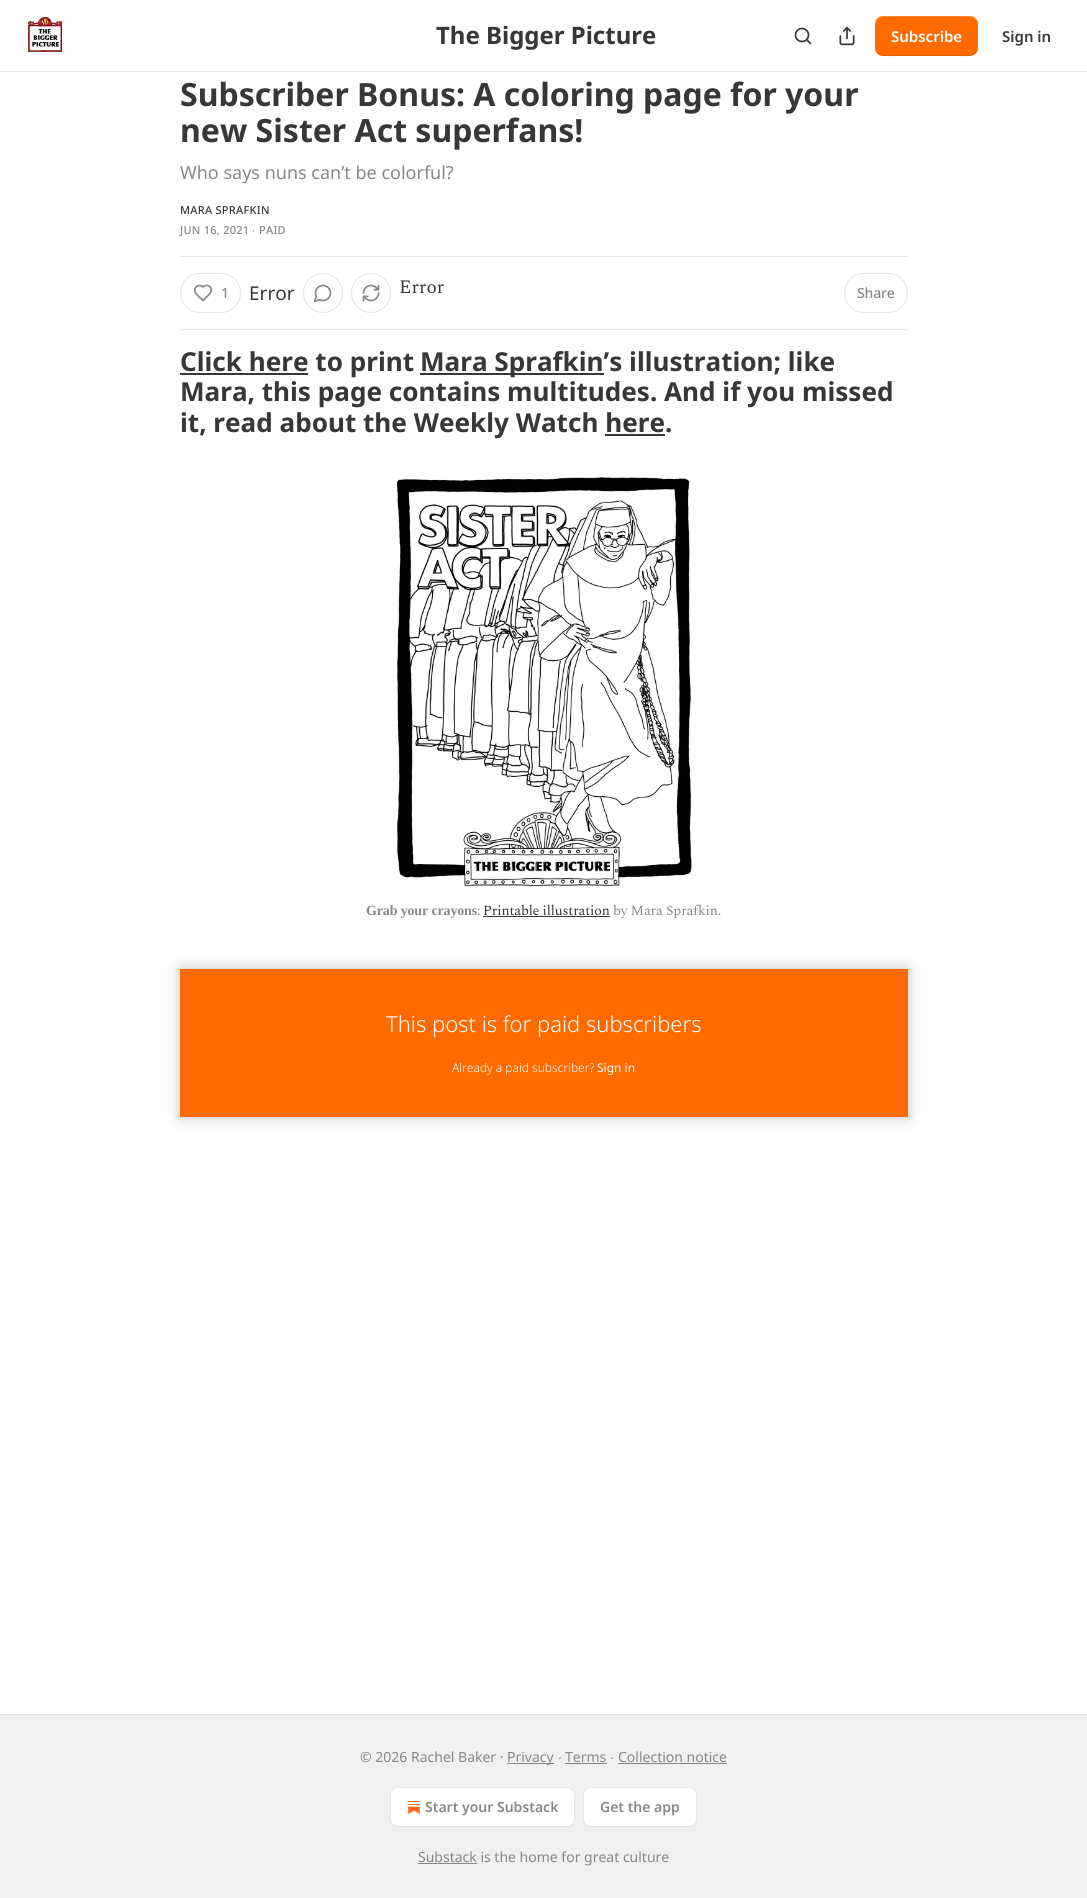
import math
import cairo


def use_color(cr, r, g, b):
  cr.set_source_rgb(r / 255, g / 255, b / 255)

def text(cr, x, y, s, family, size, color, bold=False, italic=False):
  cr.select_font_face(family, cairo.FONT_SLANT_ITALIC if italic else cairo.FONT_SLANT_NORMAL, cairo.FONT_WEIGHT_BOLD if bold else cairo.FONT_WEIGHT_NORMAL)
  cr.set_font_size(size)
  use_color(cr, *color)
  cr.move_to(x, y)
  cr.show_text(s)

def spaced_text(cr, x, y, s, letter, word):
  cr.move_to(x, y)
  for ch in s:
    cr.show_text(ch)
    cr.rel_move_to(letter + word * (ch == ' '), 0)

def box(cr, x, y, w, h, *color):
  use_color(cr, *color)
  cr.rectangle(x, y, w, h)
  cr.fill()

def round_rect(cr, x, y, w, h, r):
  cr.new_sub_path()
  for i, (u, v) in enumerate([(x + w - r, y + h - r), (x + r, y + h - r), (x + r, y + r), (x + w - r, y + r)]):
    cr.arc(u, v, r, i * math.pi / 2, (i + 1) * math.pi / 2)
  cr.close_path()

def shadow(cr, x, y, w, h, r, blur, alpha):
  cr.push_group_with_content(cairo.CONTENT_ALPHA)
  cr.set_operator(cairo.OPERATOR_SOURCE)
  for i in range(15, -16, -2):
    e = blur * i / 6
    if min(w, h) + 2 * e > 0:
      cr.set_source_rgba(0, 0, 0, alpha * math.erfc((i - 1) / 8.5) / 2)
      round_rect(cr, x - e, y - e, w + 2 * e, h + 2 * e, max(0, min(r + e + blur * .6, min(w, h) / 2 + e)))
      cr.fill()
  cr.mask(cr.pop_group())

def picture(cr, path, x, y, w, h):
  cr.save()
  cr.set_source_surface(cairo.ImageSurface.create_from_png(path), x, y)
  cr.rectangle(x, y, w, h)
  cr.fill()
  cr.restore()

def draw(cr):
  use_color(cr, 255, 255, 255)
  cr.paint()
  box(cr, 0, 71, 1087, 1, 230, 230, 230)
  picture(cr, "img_01.png", 25, 16, 40, 37)
  cr.arc(802, 35, 6.5, 0, 2 * math.pi)
  use_color(cr, 54, 55, 55)
  cr.set_line_width(1.7)
  cr.stroke()
  cr.new_path()
  cr.move_to(810.5, 43.5)
  cr.line_to(807, 40)
  cr.set_line_cap(cairo.LINE_CAP_ROUND)
  cr.set_line_join(cairo.LINE_JOIN_ROUND)
  cr.stroke()
  picture(cr, "img_02.png", 839, 26, 16, 20)
  use_color(cr, 255, 107, 0)
  round_rect(cr, 875, 16, 103, 40, 8)
  cr.fill()
  cr.set_source_rgba(0, 0, 0, 0.1)
  cr.new_path()
  cr.move_to(875, 47)
  cr.curve_to(875, 59, 889, 56, 898, 56)
  cr.line_to(956, 56)
  cr.curve_to(964, 56, 978, 59, 978, 47)
  cr.curve_to(978, 51, 974, 55, 970, 55)
  cr.line_to(883, 55)
  cr.curve_to(879, 55, 875, 51, 875, 47)
  cr.close_path()
  cr.fill()
  cr.set_source_rgba(1, 1, 1, 0.2)
  cr.new_path()
  cr.move_to(883, 17)
  cr.line_to(970, 17)
  cr.curve_to(974, 17, 978, 21, 978, 25)
  cr.curve_to(978, 13, 964, 16, 956, 16)
  cr.line_to(898, 16)
  cr.curve_to(889, 16, 875, 13, 875, 25)
  cr.curve_to(875, 21, 879, 17, 883, 17)
  cr.close_path()
  cr.fill()
  box(cr, 180, 256, 728, 1, 230, 230, 230)
  box(cr, 180, 329, 728, 1, 230, 230, 230)
  round_rect(cr, 180.5, 273.5, 60, 39, 19.5)
  cr.set_line_width(1)
  cr.set_line_cap(cairo.LINE_CAP_BUTT)
  cr.set_line_join(cairo.LINE_JOIN_MITER)
  cr.stroke()
  cr.new_path()
  cr.move_to(209, 294.5)
  cr.curve_to(215, 288.5, 208, 282.5, 203, 287)
  cr.curve_to(199.5, 283.5, 193.5, 286.5, 195, 291.5)
  cr.curve_to(196, 294.5, 201, 298.5, 203, 300.5)
  cr.close_path()
  use_color(cr, 134, 135, 135)
  cr.set_line_width(1.7)
  cr.set_line_cap(cairo.LINE_CAP_ROUND)
  cr.set_line_join(cairo.LINE_JOIN_ROUND)
  cr.stroke()
  cr.arc(323, 293, 19.5, 0, 2 * math.pi)
  use_color(cr, 230, 230, 230)
  cr.set_line_width(1)
  cr.set_line_cap(cairo.LINE_CAP_BUTT)
  cr.set_line_join(cairo.LINE_JOIN_MITER)
  cr.stroke()
  picture(cr, "img_03.png", 313, 284, 19, 19)
  cr.arc(371, 293, 19.5, 0, 2 * math.pi)
  cr.stroke()
  picture(cr, "img_04.png", 362, 284, 18, 18)
  round_rect(cr, 844.5, 273.5, 63, 39, 19.5)
  cr.stroke()
  box(cr, 180, 373, 128, 2, 54, 55, 55)
  box(cr, 420, 373, 184, 2, 54, 55, 55)
  box(cr, 605, 434, 60, 2, 54, 55, 55)
  picture(cr, "img_05.png", 396, 477, 296, 409)
  box(cr, 483, 916, 127, 1, 54, 55, 55)
  box(cr, 180, 969, 728, 148, 255, 107, 0)
  cr.save()
  cr.set_fill_rule(cairo.FILL_RULE_EVEN_ODD)
  cr.new_path()
  cr.move_to(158, 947)
  cr.line_to(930, 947)
  cr.line_to(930, 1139)
  cr.line_to(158, 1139)
  cr.close_path()
  cr.move_to(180, 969)
  cr.line_to(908, 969)
  cr.line_to(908, 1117)
  cr.line_to(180, 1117)
  cr.close_path()
  cr.clip()
  use_color(cr, 0, 0, 0)
  shadow(cr, 180, 969, 728, 148, 0, 7, 0.25)
  cr.restore()
  box(cr, 0, 1715, 1087, 183, 240, 240, 240)
  box(cr, 0, 1714, 1087, 1, 230, 230, 230)
  box(cr, 507, 1763, 47, 1, 134, 135, 135)
  box(cr, 565, 1763, 42, 1, 134, 135, 135)
  box(cr, 618, 1763, 109, 1, 134, 135, 135)
  use_color(cr, 255, 255, 255)
  round_rect(cr, 390.5, 1787.5, 184, 39, 7.5)
  cr.fill_preserve()
  use_color(cr, 230, 230, 230)
  cr.stroke()
  picture(cr, "img_06.png", 408, 1801, 12, 13)
  use_color(cr, 255, 255, 255)
  round_rect(cr, 583.5, 1787.5, 113, 39, 7.5)
  cr.fill_preserve()
  use_color(cr, 230, 230, 230)
  cr.stroke()
  box(cr, 418, 1863, 59, 1, 134, 135, 135)
  text(cr, 436, 44, "The Bigger Picture", "Noto Sans", 24, (54, 55, 55), bold=True)
  text(cr, 891, 42, "Subscribe", "Noto Sans SemiBold", 15, (255, 255, 255))
  text(cr, 1002, 42, "Sign in", "Noto Sans SemiBold", 15, (54, 55, 55))
  text(cr, 180, 106, "Subscriber Bonus: A coloring page for your", "Noto Sans", 32, (54, 55, 55), bold=True)
  text(cr, 180, 142, "new Sister Act superfans!", "Noto Sans", 32, (54, 55, 55), bold=True)
  text(cr, 180, 179, "Who says nuns can’t be colorful?", "Noto Sans", 18, (134, 135, 135))
  cr.select_font_face("Noto Sans Medium")
  cr.set_font_size(11)
  use_color(cr, 54, 55, 55)
  spaced_text(cr, 180, 214, "MARA SPRAFKIN", 0.25, 0)
  use_color(cr, 134, 135, 135)
  spaced_text(cr, 180, 234, "JUN 16, 2021", 0.25, 0)
  cr.select_font_face("Liberation Sans")
  spaced_text(cr, 252, 234, "∙", 0.25, 0)
  cr.select_font_face("Noto Sans Medium")
  spaced_text(cr, 259, 234, "PAID", 0.25, 0)
  cr.set_font_size(14)
  spaced_text(cr, 221, 298, "1", -0.15, 0)
  text(cr, 249, 300, "Error", "Noto Sans", 19, (54, 55, 55))
  text(cr, 399, 293, "Error", "Spectral", 19, (54, 55, 55))
  cr.select_font_face("Noto Sans Medium")
  cr.set_font_size(14)
  use_color(cr, 134, 135, 135)
  spaced_text(cr, 857, 298, "Share", -0.15, 0)
  text(cr, 180, 371, "Click here to print", "Noto Sans", 26.1, (54, 55, 55), bold=True)
  text(cr, 420, 371, "Mara Sprafkin’s illustration; like", "Noto Sans", 26.1, (54, 55, 55), bold=True)
  text(cr, 180, 401, "Mara, this page contains multitudes. And if you missed", "Noto Sans", 26.1, (54, 55, 55), bold=True)
  text(cr, 180, 432, "it, read about the Weekly Watch here.", "Noto Sans", 26.1, (54, 55, 55), bold=True)
  cr.select_font_face("Liberation Serif", cairo.FONT_SLANT_NORMAL, cairo.FONT_WEIGHT_BOLD)
  cr.set_font_size(14)
  use_color(cr, 134, 135, 135)
  spaced_text(cr, 366, 915, "Grab your crayons", -0.15, 0)
  cr.select_font_face("Spectral")
  spaced_text(cr, 477, 915, ":", -0.15, 0)
  use_color(cr, 54, 55, 55)
  spaced_text(cr, 483, 915, "Printable illustration", -0.15, 0)
  use_color(cr, 134, 135, 135)
  spaced_text(cr, 613, 915, "by Mara Sprafkin.", -0.15, 0)
  text(cr, 386, 1032, "This post is for paid subscribers", "Noto Sans Light", 22, (255, 255, 255))
  text(cr, 452, 1072, "Already a paid subscriber?", "Noto Sans Light", 12, (255, 255, 255))
  text(cr, 597, 1072, "Sign in", "Noto Sans", 12, (255, 255, 255))
  text(cr, 360, 1762, "© 2026 Rachel Baker ·", "Noto Sans", 14, (134, 135, 135))
  text(cr, 507, 1762, "Privacy", "Noto Sans", 14, (134, 135, 135))
  text(cr, 558, 1762, "∙", "Liberation Sans", 14, (134, 135, 135))
  text(cr, 565, 1762, "Terms", "Noto Sans", 14, (134, 135, 135))
  text(cr, 610, 1762, "∙", "Liberation Sans", 14, (134, 135, 135))
  text(cr, 618, 1762, "Collection notice", "Noto Sans", 14, (134, 135, 135))
  text(cr, 425, 1812, "Start your Substack", "Noto Sans SemiBold", 14, (134, 135, 135))
  text(cr, 600, 1812, "Get the app", "Noto Sans SemiBold", 14, (134, 135, 135))
  text(cr, 418, 1862, "Substack is the home for great culture", "Noto Sans", 14, (134, 135, 135))


surface = cairo.ImageSurface(cairo.FORMAT_RGB24, 1087, 1898)
cr = cairo.Context(surface)
options = cairo.FontOptions()
options.set_hint_metrics(cairo.HINT_METRICS_OFF)
options.set_hint_style(cairo.HINT_STYLE_NONE)
cr.set_font_options(options)
cr.set_miter_limit(4)
draw(cr)
surface.write_to_png("out.png")
